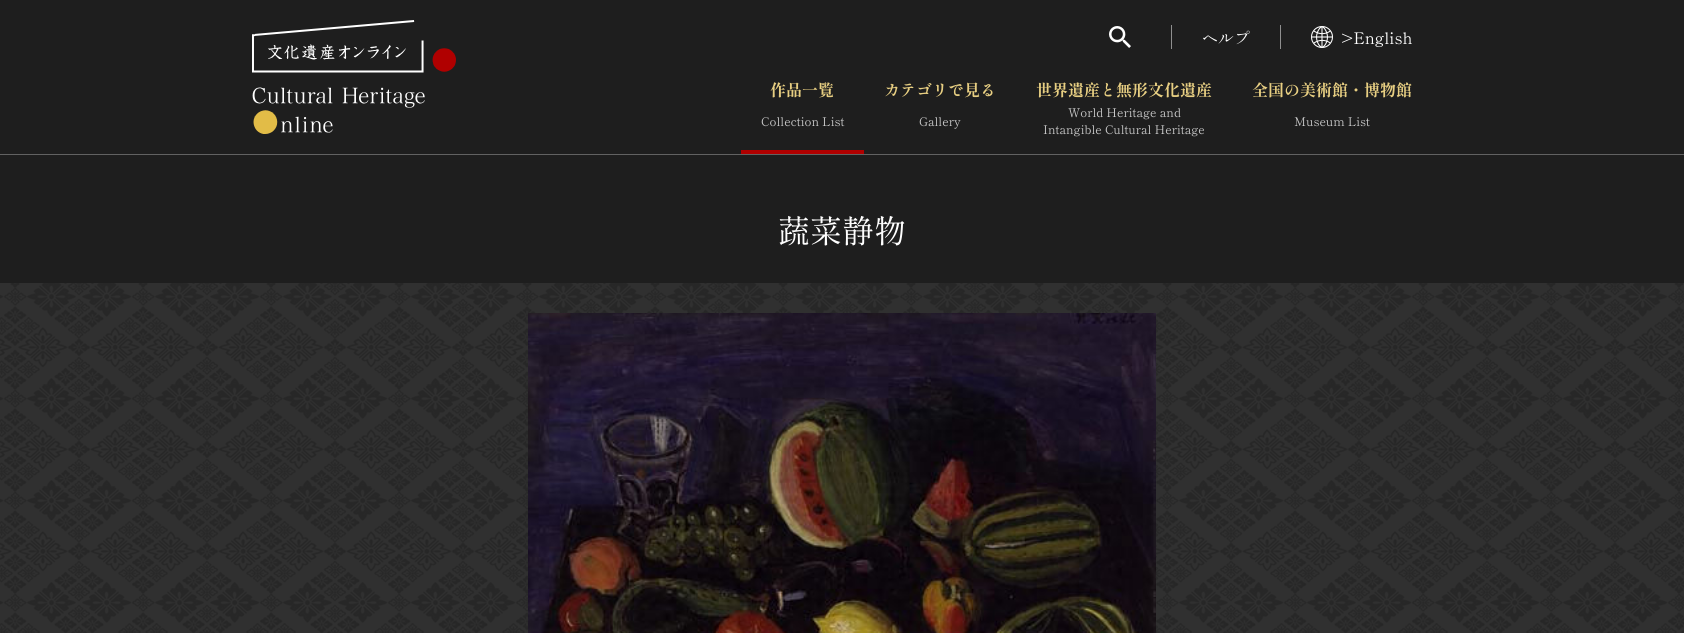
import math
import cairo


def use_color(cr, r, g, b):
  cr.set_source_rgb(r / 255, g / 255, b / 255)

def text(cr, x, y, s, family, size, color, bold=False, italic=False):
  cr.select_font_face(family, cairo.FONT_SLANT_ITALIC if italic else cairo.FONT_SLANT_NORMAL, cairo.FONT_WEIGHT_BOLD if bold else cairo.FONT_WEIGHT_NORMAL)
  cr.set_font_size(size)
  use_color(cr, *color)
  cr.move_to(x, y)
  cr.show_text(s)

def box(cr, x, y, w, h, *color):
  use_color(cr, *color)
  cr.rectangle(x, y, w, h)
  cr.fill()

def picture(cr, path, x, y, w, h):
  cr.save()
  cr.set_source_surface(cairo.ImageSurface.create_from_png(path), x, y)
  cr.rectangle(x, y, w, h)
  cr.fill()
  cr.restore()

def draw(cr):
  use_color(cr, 30, 30, 30)
  cr.paint()
  box(cr, 0, 154, 1684, 1, 98, 98, 98)
  picture(cr, "img_01.png", 252, 20, 204, 114)
  picture(cr, "img_02.png", 1109, 26, 22, 22)
  box(cr, 1171, 25, 1, 24, 143, 143, 143)
  box(cr, 1280, 25, 1, 24, 143, 143, 143)
  picture(cr, "img_03.png", 1311, 26, 22, 22)
  box(cr, 741, 150, 123, 4, 176, 0, 0)
  picture(cr, "img_04.png", 0, 283, 1684, 350)
  picture(cr, "img_05.png", 528, 313, 628, 320)
  text(cr, 1202, 44, "ヘルプ", "Shippori Mincho", 16, (255, 255, 255))
  text(cr, 1341, 44, ">English", "Shippori Mincho", 16, (255, 255, 255))
  text(cr, 770, 96, "作品一覧", "Shippori Mincho", 16, (232, 207, 130), bold=True)
  text(cr, 761, 126, "Collection List", "Shippori Mincho", 12, (204, 204, 204))
  text(cr, 884, 96, "カテゴリで見る", "Shippori Mincho", 16, (232, 207, 130), bold=True)
  text(cr, 919, 126, "Gallery", "Shippori Mincho", 12, (204, 204, 204))
  text(cr, 1036, 96, "世界遺産と無形文化遺産", "Shippori Mincho", 16, (232, 207, 130), bold=True)
  text(cr, 1068, 117, "World Heritage and", "Shippori Mincho", 12, (204, 204, 204))
  text(cr, 1043, 134, "Intangible Cultural Heritage", "Shippori Mincho", 12, (204, 204, 204))
  text(cr, 1252, 96, "全国の美術館・博物館", "Shippori Mincho", 16, (232, 207, 130), bold=True)
  text(cr, 1294, 126, "Museum List", "Shippori Mincho", 12, (204, 204, 204))
  text(cr, 778, 243, "蔬菜静物", "Shippori Mincho", 32, (255, 255, 255))


surface = cairo.ImageSurface(cairo.FORMAT_RGB24, 1684, 633)
cr = cairo.Context(surface)
options = cairo.FontOptions()
options.set_hint_metrics(cairo.HINT_METRICS_OFF)
options.set_hint_style(cairo.HINT_STYLE_NONE)
cr.set_font_options(options)
cr.set_miter_limit(4)
draw(cr)
surface.write_to_png("out.png")
